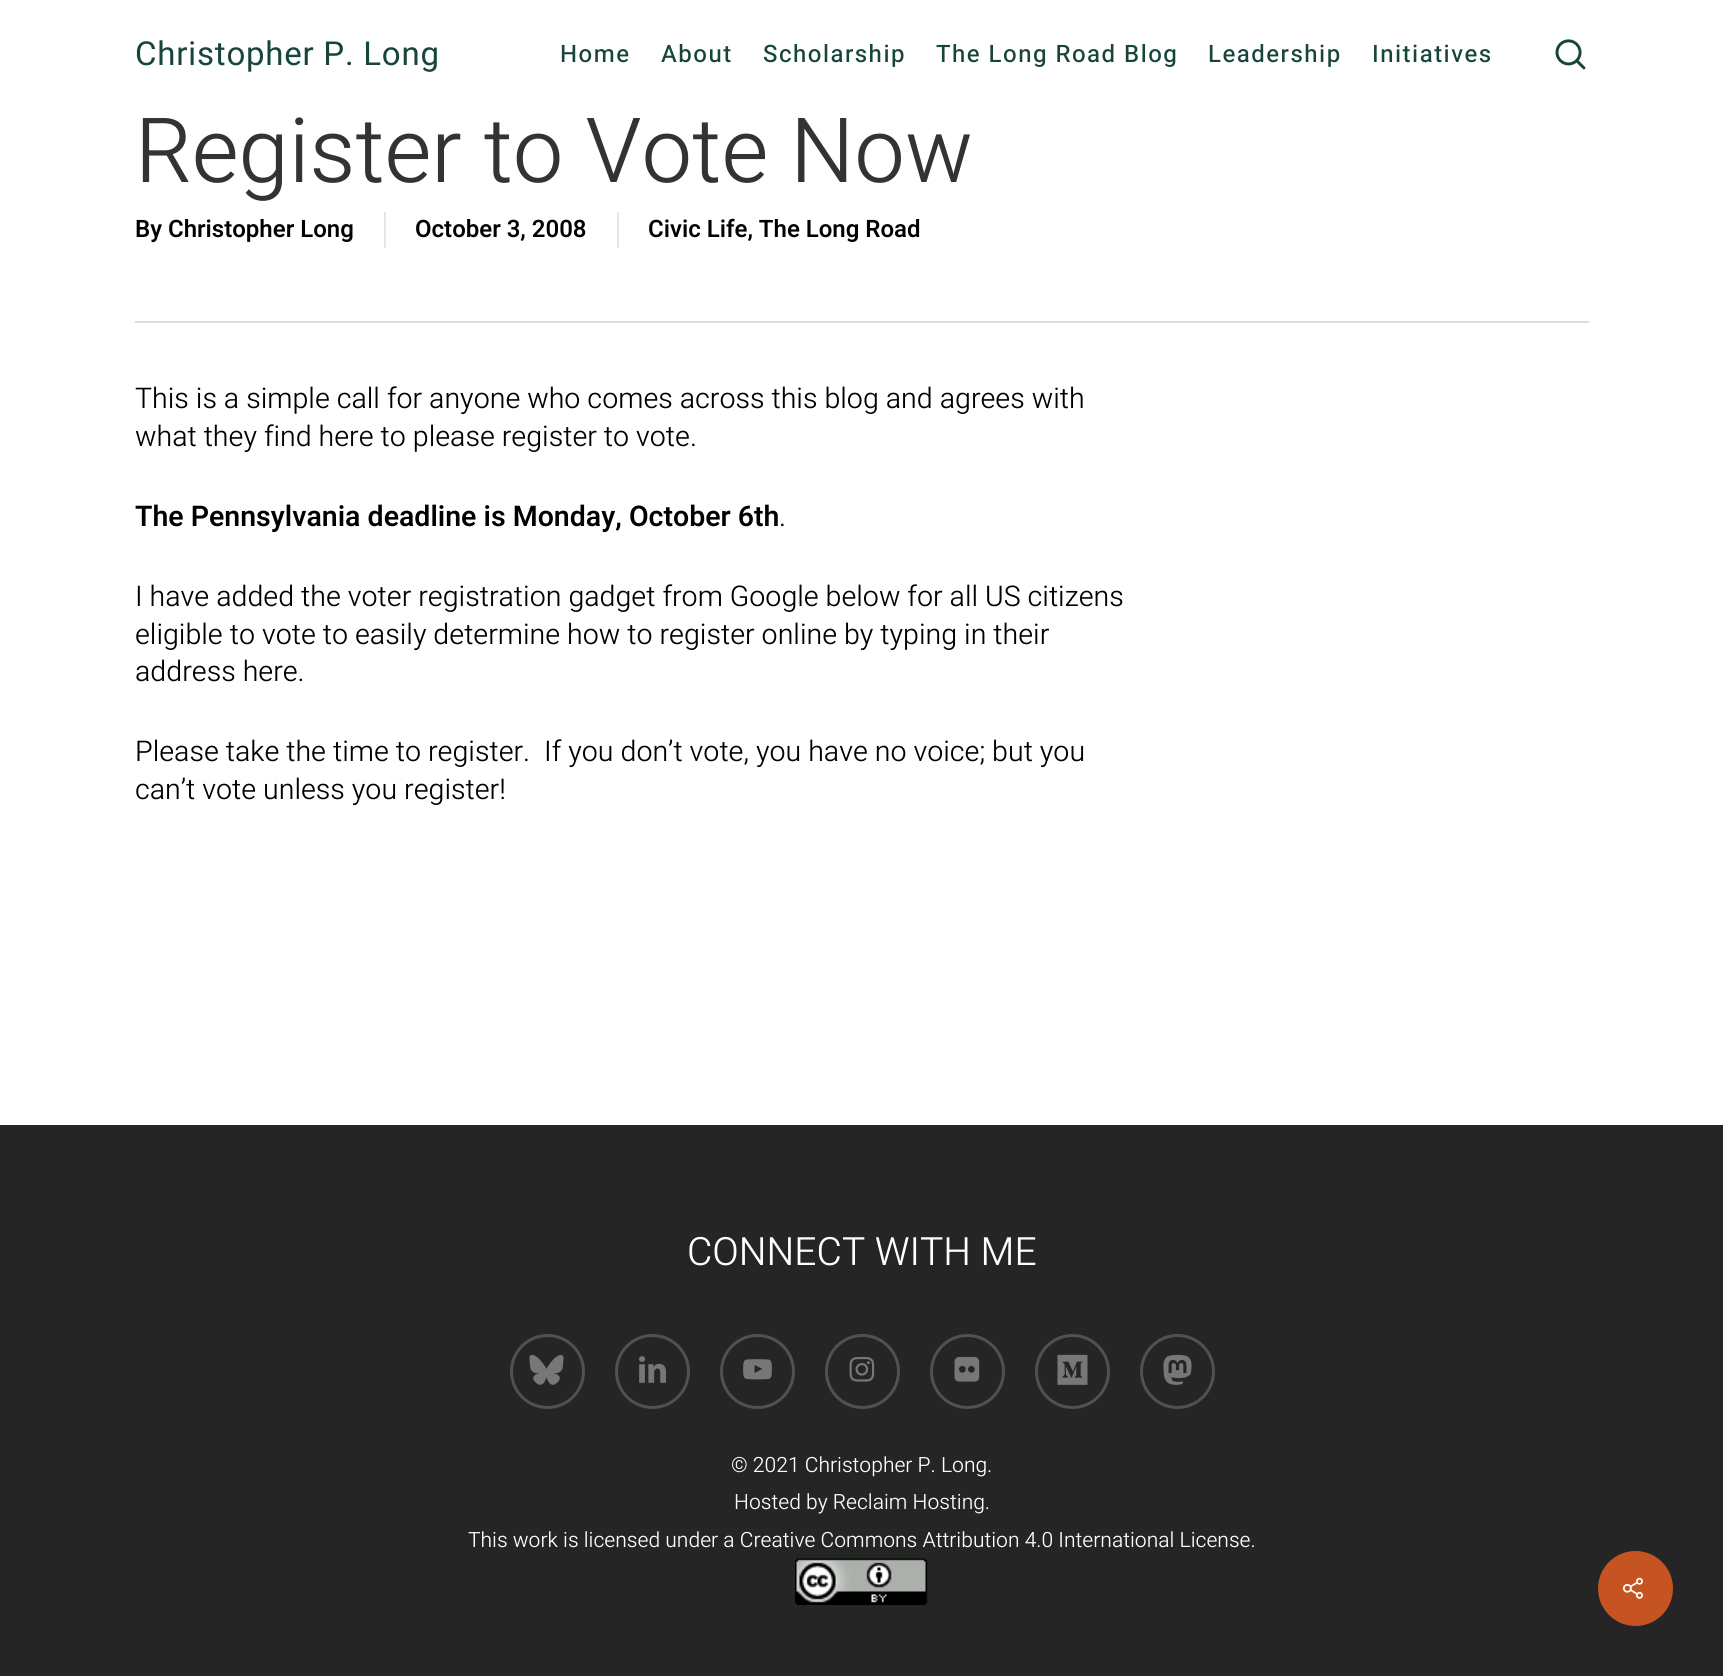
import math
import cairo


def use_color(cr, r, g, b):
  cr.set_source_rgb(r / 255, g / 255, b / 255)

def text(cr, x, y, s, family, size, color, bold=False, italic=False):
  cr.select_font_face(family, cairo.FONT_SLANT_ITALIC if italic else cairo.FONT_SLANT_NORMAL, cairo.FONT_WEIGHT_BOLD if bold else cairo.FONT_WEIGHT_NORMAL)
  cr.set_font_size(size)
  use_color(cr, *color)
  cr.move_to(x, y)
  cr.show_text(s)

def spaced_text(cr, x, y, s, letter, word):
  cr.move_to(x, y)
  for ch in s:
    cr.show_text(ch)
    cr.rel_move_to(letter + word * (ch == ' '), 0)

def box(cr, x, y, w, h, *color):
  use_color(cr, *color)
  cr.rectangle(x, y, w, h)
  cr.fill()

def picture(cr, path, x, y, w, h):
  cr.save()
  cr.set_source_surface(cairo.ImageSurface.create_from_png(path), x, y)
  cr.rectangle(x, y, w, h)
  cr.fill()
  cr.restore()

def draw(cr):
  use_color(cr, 255, 255, 255)
  cr.paint()
  picture(cr, "img_01.png", 1555, 39, 31, 31)
  box(cr, 135, 321, 1454, 2, 221, 221, 221)
  box(cr, 384, 212, 2, 36, 230, 230, 230)
  box(cr, 617, 212, 2, 36, 230, 230, 230)
  box(cr, 0, 1125, 1723, 551, 37, 37, 37)
  picture(cr, "img_02.png", 529, 1354, 35, 31)
  cr.arc(547.5, 1371.5, 36, 0, 2 * math.pi)
  use_color(cr, 81, 81, 81)
  cr.set_line_width(3)
  cr.stroke()
  picture(cr, "img_03.png", 639, 1356, 27, 27)
  cr.arc(652.5, 1371.5, 36, 0, 2 * math.pi)
  cr.stroke()
  picture(cr, "img_04.png", 743, 1359, 29, 21)
  cr.arc(757.5, 1371.5, 36, 0, 2 * math.pi)
  cr.stroke()
  picture(cr, "img_05.png", 849, 1356, 26, 26)
  cr.arc(862.5, 1371.5, 36, 0, 2 * math.pi)
  cr.stroke()
  picture(cr, "img_06.png", 954, 1356, 26, 26)
  cr.arc(967.5, 1371.5, 36, 0, 2 * math.pi)
  cr.stroke()
  picture(cr, "img_07.png", 1057, 1354, 31, 31)
  cr.arc(1072.5, 1371.5, 36, 0, 2 * math.pi)
  cr.stroke()
  picture(cr, "img_08.png", 1163, 1354, 29, 31)
  cr.arc(1177.5, 1371.5, 36, 0, 2 * math.pi)
  cr.stroke()
  picture(cr, "img_09.png", 795, 1558, 133, 47)
  use_color(cr, 197, 84, 34)
  cr.arc(1635.5, 1588.5, 37.5, 0, 2 * math.pi)
  cr.fill()
  picture(cr, "img_10.png", 1623, 1577, 20, 22)
  cr.select_font_face("Heebo")
  cr.set_font_size(33)
  use_color(cr, 24, 69, 59)
  spaced_text(cr, 135, 65, "Christopher P. Long", 0.75, 0)
  cr.select_font_face("Heebo Medium")
  cr.set_font_size(24)
  spaced_text(cr, 560, 62, "Home", 1.5, 0)
  spaced_text(cr, 661, 62, "About", 1.5, 0)
  spaced_text(cr, 763, 62, "Scholarship", 1.5, 0)
  spaced_text(cr, 936, 62, "The Long Road Blog", 1.5, 0)
  spaced_text(cr, 1208, 62, "Leadership", 1.5, 0)
  spaced_text(cr, 1372, 62, "Initiatives", 1.5, 0)
  text(cr, 135, 182, "Register to Vote Now", "Heebo Light", 90, (51, 51, 51))
  text(cr, 135, 237, "By", "Heebo SemiBold", 24, (0, 0, 0))
  text(cr, 168, 237, "Christopher Long", "Heebo SemiBold", 24, (0, 0, 0))
  text(cr, 415, 237, "October 3, 2008", "Heebo SemiBold", 24, (0, 0, 0))
  text(cr, 648, 237, "Civic Life, The Long Road", "Heebo SemiBold", 24, (0, 0, 0))
  text(cr, 135, 408, "This is a simple call for anyone who comes across this blog and agrees with", "Heebo Light", 28.5, (0, 0, 0))
  text(cr, 135, 446, "what they find here to please register to vote.", "Heebo Light", 28.5, (0, 0, 0))
  text(cr, 135, 526, "The Pennsylvania deadline is Monday, October 6th", "Heebo SemiBold", 28.5, (0, 0, 0))
  text(cr, 779, 526, ".", "Heebo Light", 28.5, (0, 0, 0))
  text(cr, 135, 606, "I have added the voter registration gadget from Google below for all US citizens", "Heebo Light", 28.5, (0, 0, 0))
  text(cr, 135, 644, "eligible to vote to easily determine how to register online by typing in their", "Heebo Light", 28.5, (0, 0, 0))
  text(cr, 135, 681, "address here.", "Heebo Light", 28.5, (0, 0, 0))
  text(cr, 135, 761, "Please take the time to register.  If you don’t vote, you have no voice; but you", "Heebo Light", 28.5, (0, 0, 0))
  text(cr, 135, 799, "can’t vote unless you register!", "Heebo Light", 28.5, (0, 0, 0))
  text(cr, 687, 1265, "CONNECT WITH ME", "Heebo Light", 39, (255, 255, 255))
  text(cr, 731, 1472, "© 2021 Christopher P. Long.", "Heebo Light", 21, (255, 255, 255))
  text(cr, 734, 1509, "Hosted by Reclaim Hosting.", "Heebo Light", 21, (255, 255, 255))
  text(cr, 468, 1547, "This work is licensed under a Creative Commons Attribution 4.0 International License.", "Heebo Light", 21, (255, 255, 255))


surface = cairo.ImageSurface(cairo.FORMAT_RGB24, 1723, 1676)
cr = cairo.Context(surface)
options = cairo.FontOptions()
options.set_hint_metrics(cairo.HINT_METRICS_OFF)
options.set_hint_style(cairo.HINT_STYLE_NONE)
cr.set_font_options(options)
cr.set_miter_limit(4)
draw(cr)
surface.write_to_png("out.png")
